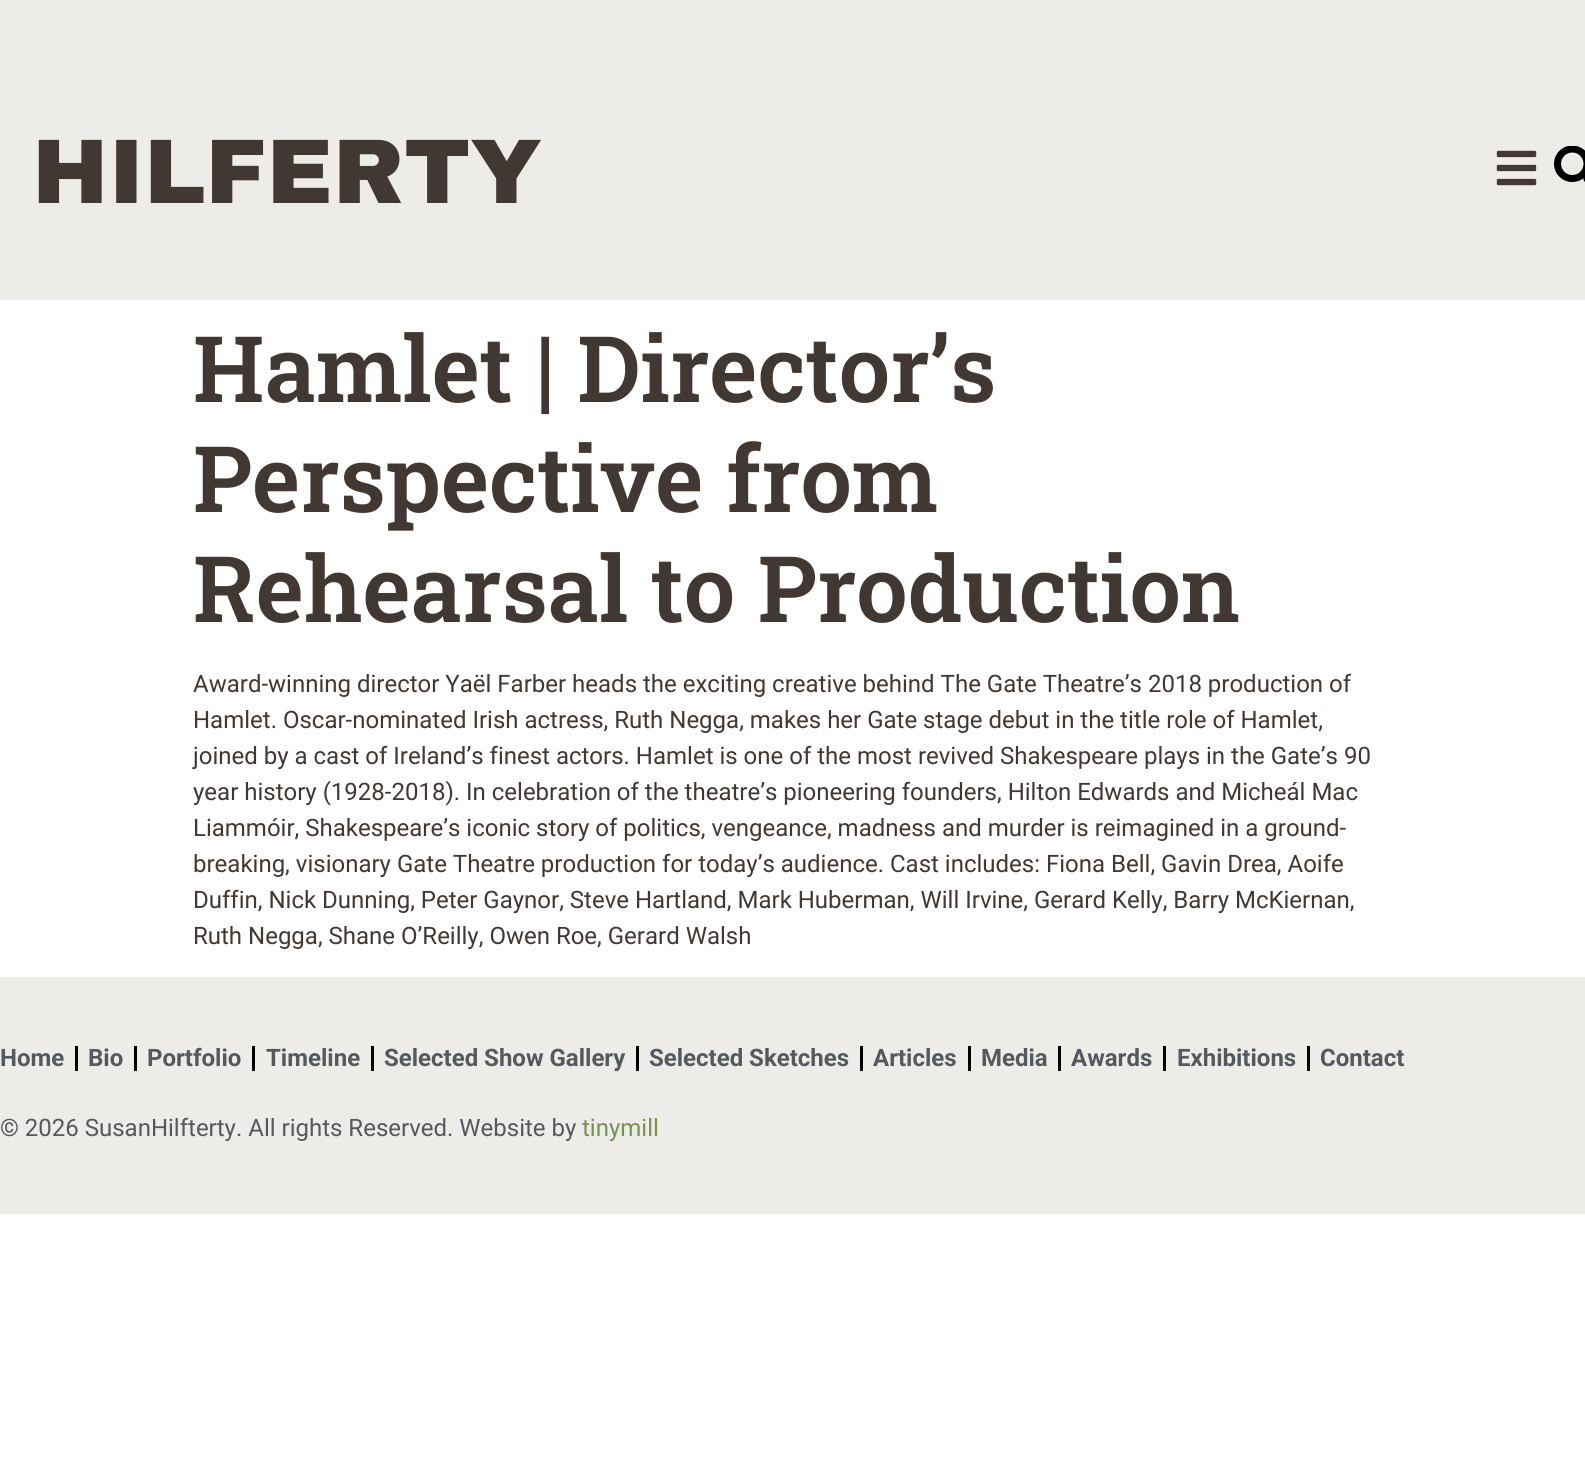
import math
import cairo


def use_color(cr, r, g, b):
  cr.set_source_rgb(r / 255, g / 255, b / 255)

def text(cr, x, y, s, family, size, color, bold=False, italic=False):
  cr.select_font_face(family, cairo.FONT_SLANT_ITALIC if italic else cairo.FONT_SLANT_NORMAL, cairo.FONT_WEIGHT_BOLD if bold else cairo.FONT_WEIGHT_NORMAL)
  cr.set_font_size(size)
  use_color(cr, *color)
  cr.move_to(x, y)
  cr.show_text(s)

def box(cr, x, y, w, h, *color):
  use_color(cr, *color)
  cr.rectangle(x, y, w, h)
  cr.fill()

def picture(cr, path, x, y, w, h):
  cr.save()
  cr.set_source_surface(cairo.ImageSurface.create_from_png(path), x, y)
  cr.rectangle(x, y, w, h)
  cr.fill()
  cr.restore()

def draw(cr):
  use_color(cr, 255, 255, 255)
  cr.paint()
  box(cr, 0, 0, 1585, 300, 238, 236, 232)
  picture(cr, "img_01.png", 1496, 150, 41, 36)
  picture(cr, "img_02.png", 1554, 146, 31, 37)
  box(cr, 0, 977, 1585, 237, 238, 236, 232)
  box(cr, 75, 1046, 3, 25, 0, 0, 0)
  box(cr, 134, 1046, 3, 25, 0, 0, 0)
  box(cr, 252, 1046, 3, 25, 0, 0, 0)
  box(cr, 371, 1046, 3, 25, 0, 0, 0)
  box(cr, 636, 1046, 3, 25, 0, 0, 0)
  box(cr, 860, 1046, 3, 25, 0, 0, 0)
  box(cr, 968, 1046, 3, 25, 0, 0, 0)
  box(cr, 1058, 1046, 3, 25, 0, 0, 0)
  box(cr, 1163, 1046, 3, 25, 0, 0, 0)
  box(cr, 1307, 1046, 3, 25, 0, 0, 0)
  text(cr, 32, 203, "HILFERTY", "Archivo Black Black", 91.75, (65, 56, 51))
  text(cr, 193, 402, "Hamlet | Director’s", "Roboto Slab SemiBold", 91.75, (65, 56, 51))
  text(cr, 193, 512, "Perspective from", "Roboto Slab SemiBold", 91.75, (65, 56, 51))
  text(cr, 193, 622, "Rehearsal to Production", "Roboto Slab SemiBold", 91.75, (65, 56, 51))
  text(cr, 193, 692, "Award-winning director Yaël Farber heads the exciting creative behind The Gate Theatre’s 2018 production of", "Roboto", 24, (65, 56, 51))
  text(cr, 193, 728, "Hamlet. Oscar-nominated Irish actress, Ruth Negga, makes her Gate stage debut in the title role of Hamlet,", "Roboto", 24, (65, 56, 51))
  text(cr, 193, 764, "joined by a cast of Ireland’s finest actors. Hamlet is one of the most revived Shakespeare plays in the Gate’s 90", "Roboto", 24, (65, 56, 51))
  text(cr, 193, 800, "year history (1928-2018). In celebration of the theatre’s pioneering founders, Hilton Edwards and Micheál Mac", "Roboto", 24, (65, 56, 51))
  text(cr, 193, 836, "Liammóir, Shakespeare’s iconic story of politics, vengeance, madness and murder is reimagined in a ground-", "Roboto", 24, (65, 56, 51))
  text(cr, 193, 872, "breaking, visionary Gate Theatre production for today’s audience. Cast includes: Fiona Bell, Gavin Drea, Aoife", "Roboto", 24, (65, 56, 51))
  text(cr, 193, 908, "Duffin, Nick Dunning, Peter Gaynor, Steve Hartland, Mark Huberman, Will Irvine, Gerard Kelly, Barry McKiernan,", "Roboto", 24, (65, 56, 51))
  text(cr, 193, 944, "Ruth Negga, Shane O’Reilly, Owen Roe, Gerard Walsh", "Roboto", 24, (65, 56, 51))
  text(cr, 0, 1066, "Home", "Roboto", 24, (84, 89, 95), bold=True)
  text(cr, 88, 1066, "Bio", "Roboto", 24, (84, 89, 95), bold=True)
  text(cr, 147, 1066, "Portfolio", "Roboto", 24, (84, 89, 95), bold=True)
  text(cr, 266, 1066, "Timeline", "Roboto", 24, (84, 89, 95), bold=True)
  text(cr, 384, 1066, "Selected Show Gallery", "Roboto", 24, (84, 89, 95), bold=True)
  text(cr, 649, 1066, "Selected Sketches", "Roboto", 24, (84, 89, 95), bold=True)
  text(cr, 873, 1066, "Articles", "Roboto", 24, (84, 89, 95), bold=True)
  text(cr, 981, 1066, "Media", "Roboto", 24, (84, 89, 95), bold=True)
  text(cr, 1071, 1066, "Awards", "Roboto", 24, (84, 89, 95), bold=True)
  text(cr, 1177, 1066, "Exhibitions", "Roboto", 24, (84, 89, 95), bold=True)
  text(cr, 1320, 1066, "Contact", "Roboto", 24, (84, 89, 95), bold=True)
  text(cr, 0, 1136, "© 2026 SusanHilfterty. All rights Reserved. Website by", "Roboto", 24, (84, 89, 95))
  text(cr, 582, 1136, "tinymill", "Roboto", 24, (120, 146, 75))


surface = cairo.ImageSurface(cairo.FORMAT_RGB24, 1585, 1461)
cr = cairo.Context(surface)
options = cairo.FontOptions()
options.set_hint_metrics(cairo.HINT_METRICS_OFF)
options.set_hint_style(cairo.HINT_STYLE_NONE)
cr.set_font_options(options)
cr.set_miter_limit(4)
draw(cr)
surface.write_to_png("out.png")
